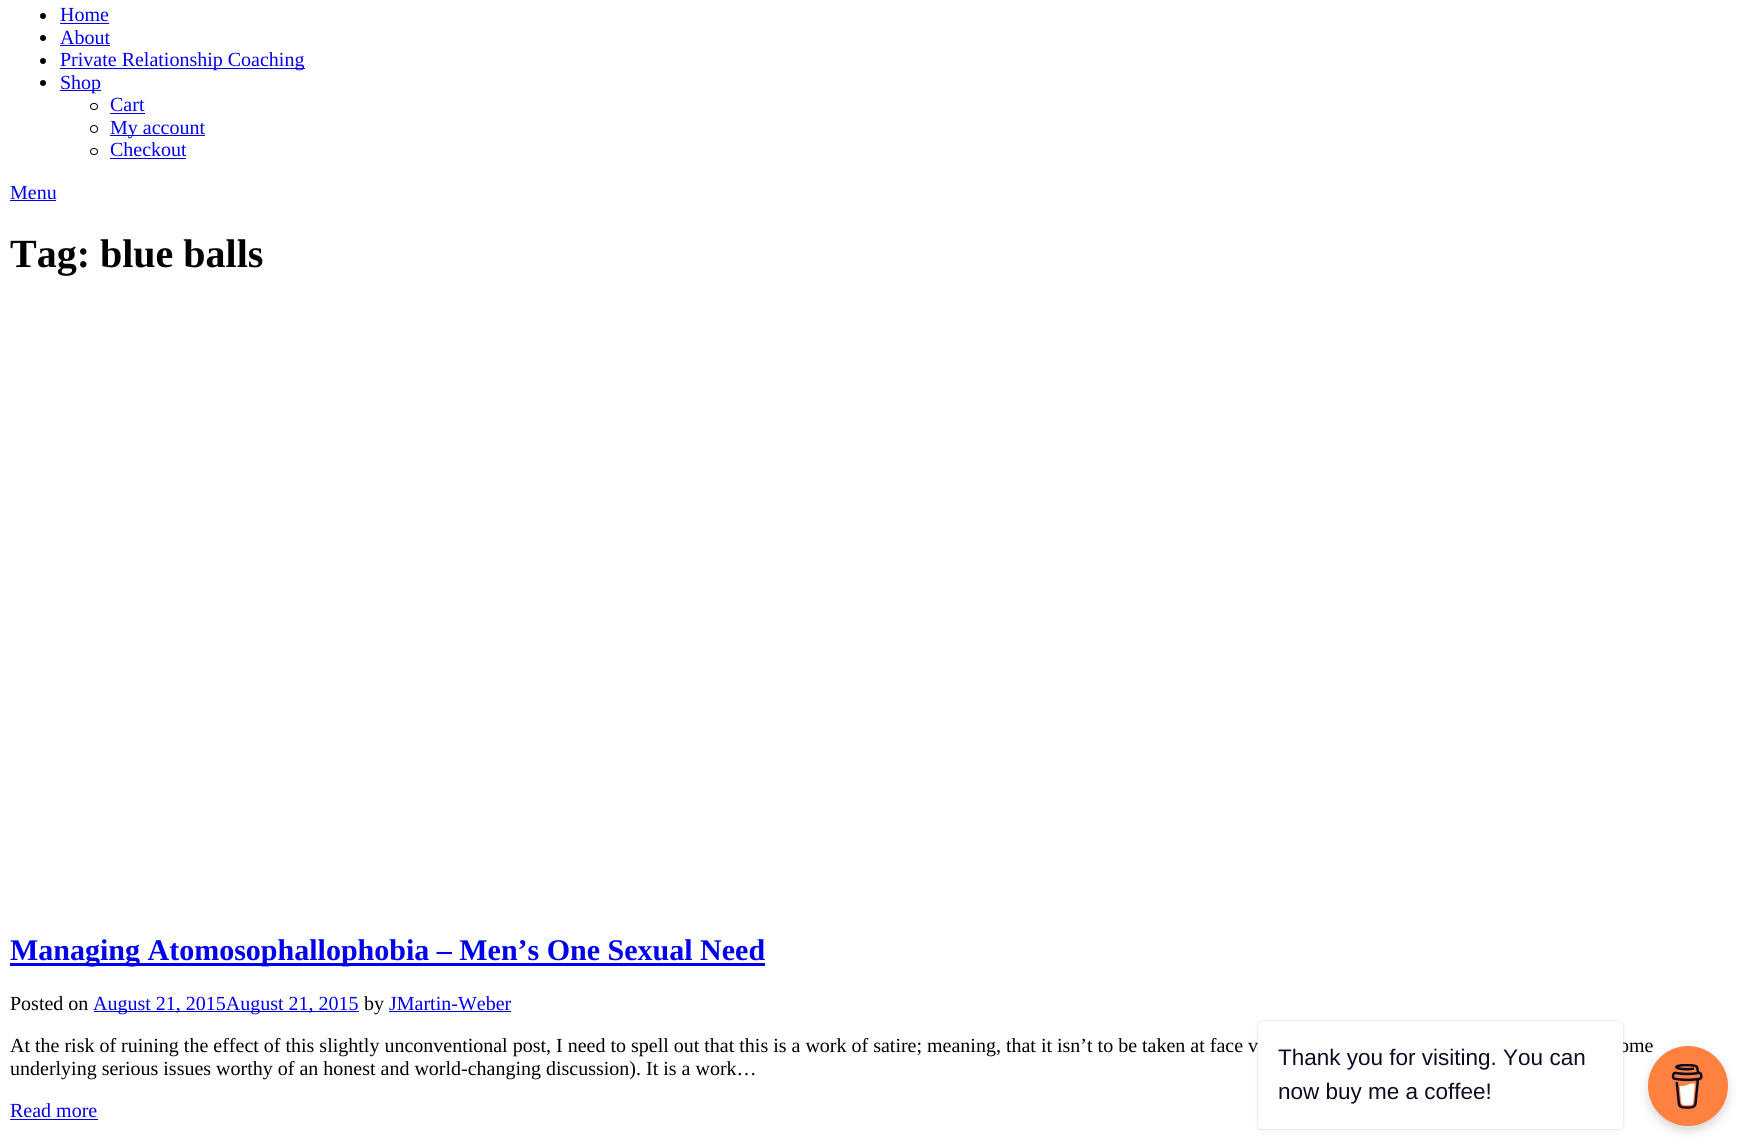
import math
import cairo


def use_color(cr, r, g, b):
  cr.set_source_rgb(r / 255, g / 255, b / 255)

def text(cr, x, y, s, family, size, color, bold=False, italic=False):
  cr.select_font_face(family, cairo.FONT_SLANT_ITALIC if italic else cairo.FONT_SLANT_NORMAL, cairo.FONT_WEIGHT_BOLD if bold else cairo.FONT_WEIGHT_NORMAL)
  cr.set_font_size(size)
  use_color(cr, *color)
  cr.move_to(x, y)
  cr.show_text(s)

def box(cr, x, y, w, h, *color):
  use_color(cr, *color)
  cr.rectangle(x, y, w, h)
  cr.fill()

def round_rect(cr, x, y, w, h, r):
  cr.new_sub_path()
  for i, (u, v) in enumerate([(x + w - r, y + h - r), (x + r, y + h - r), (x + r, y + r), (x + w - r, y + r)]):
    cr.arc(u, v, r, i * math.pi / 2, (i + 1) * math.pi / 2)
  cr.close_path()

def shadow(cr, x, y, w, h, r, blur, alpha):
  cr.push_group_with_content(cairo.CONTENT_ALPHA)
  cr.set_operator(cairo.OPERATOR_SOURCE)
  for i in range(15, -16, -2):
    e = blur * i / 6
    if min(w, h) + 2 * e > 0:
      cr.set_source_rgba(0, 0, 0, alpha * math.erfc((i - 1) / 8.5) / 2)
      round_rect(cr, x - e, y - e, w + 2 * e, h + 2 * e, max(0, min(r + e + blur * .6, min(w, h) / 2 + e)))
      cr.fill()
  cr.mask(cr.pop_group())

def picture(cr, path, x, y, w, h):
  cr.save()
  cr.set_source_surface(cairo.ImageSurface.create_from_png(path), x, y)
  cr.rectangle(x, y, w, h)
  cr.fill()
  cr.restore()

def draw(cr):
  use_color(cr, 255, 255, 255)
  cr.paint()
  use_color(cr, 0, 0, 0)
  cr.arc(43, 16, 3, 0, 2 * math.pi)
  cr.fill()
  box(cr, 60, 23, 49, 1, 0, 0, 238)
  use_color(cr, 0, 0, 0)
  cr.arc(43, 38, 3, 0, 2 * math.pi)
  cr.fill()
  box(cr, 60, 45, 50, 1, 0, 0, 238)
  use_color(cr, 0, 0, 0)
  cr.arc(43, 61, 3, 0, 2 * math.pi)
  cr.fill()
  box(cr, 60, 68, 245, 1, 0, 0, 238)
  use_color(cr, 0, 0, 0)
  cr.arc(43, 83, 3, 0, 2 * math.pi)
  cr.fill()
  box(cr, 60, 90, 41, 1, 0, 0, 238)
  round_rect(cr, 90.5, 103.5, 7, 6, 3)
  use_color(cr, 0, 0, 0)
  cr.set_line_width(1)
  cr.stroke()
  box(cr, 110, 113, 35, 1, 0, 0, 238)
  cr.arc(94, 129, 3.5, 0, 2 * math.pi)
  use_color(cr, 0, 0, 0)
  cr.stroke()
  box(cr, 110, 135, 95, 1, 0, 0, 238)
  round_rect(cr, 90.5, 148.5, 7, 6, 3)
  use_color(cr, 0, 0, 0)
  cr.stroke()
  box(cr, 110, 158, 76, 1, 0, 0, 238)
  box(cr, 10, 200, 46, 1, 0, 0, 238)
  box(cr, 10, 963, 755, 3, 0, 0, 238)
  box(cr, 94, 1011, 265, 1, 0, 0, 238)
  box(cr, 389, 1011, 122, 1, 0, 0, 238)
  box(cr, 10, 1119, 88, 1, 0, 0, 238)
  use_color(cr, 0, 0, 0)
  shadow(cr, 1648, 1051, 80, 80, 40, 5, 0.15)
  shadow(cr, 1258, 1021, 365, 108, 5, 1, 0.15)
  shadow(cr, 1258, 1024, 365, 107, 5, 3, 0.05)
  text(cr, 60, 21, "Home", "Liberation Serif", 20, (0, 0, 238))
  text(cr, 60, 44, "About", "Liberation Serif", 20, (0, 0, 238))
  text(cr, 60, 66, "Private Relationship Coaching", "Liberation Serif", 20, (0, 0, 238))
  text(cr, 60, 89, "Shop", "Liberation Serif", 20, (0, 0, 238))
  text(cr, 110, 111, "Cart", "Liberation Serif", 20, (0, 0, 238))
  text(cr, 110, 134, "My account", "Liberation Serif", 20, (0, 0, 238))
  text(cr, 110, 156, "Checkout", "Liberation Serif", 20, (0, 0, 238))
  text(cr, 10, 199, "Menu", "Liberation Serif", 20, (0, 0, 238))
  text(cr, 10, 267, "Tag: blue balls", "Liberation Serif", 40, (0, 0, 0), bold=True)
  text(cr, 10, 960, "Managing Atomosophallophobia – Men’s One Sexual Need", "Liberation Serif", 30, (0, 0, 238), bold=True)
  text(cr, 10, 1010, "Posted on", "Liberation Serif", 20, (0, 0, 0))
  text(cr, 93, 1010, "August 21, 2015August 21, 2015", "Liberation Serif", 20, (0, 0, 238))
  text(cr, 364, 1010, "by", "Liberation Serif", 20, (0, 0, 0))
  text(cr, 389, 1010, "JMartin-Weber", "Liberation Serif", 20, (0, 0, 238))
  text(cr, 10, 1052, "At the risk of ruining the effect of this slightly unconventional post, I need to spell out that this is a work of satire; meaning, that it isn’t to be taken at face v", "Liberation Serif", 20, (0, 0, 0))
  text(cr, 1619, 1052, "ome", "Liberation Serif", 20, (0, 0, 0))
  text(cr, 10, 1075, "underlying serious issues worthy of an honest and world-changing discussion). It is a work…", "Liberation Serif", 20, (0, 0, 0))
  text(cr, 10, 1117, "Read more", "Liberation Serif", 20, (0, 0, 238))
  use_color(cr, 255, 129, 63)
  cr.new_path()
  cr.arc(1688, 1086, 40, 0, 2 * math.pi)
  cr.fill()
  picture(cr, "img_01.png", 1671, 1064, 32, 45)
  use_color(cr, 255, 255, 255)
  round_rect(cr, 1258, 1021, 365, 108, 5)
  cr.fill()
  text(cr, 1278, 1065, "Thank you for visiting. You can", "Liberation Sans", 22.5, (13, 12, 34))
  text(cr, 1278, 1099, "now buy me a coffee!", "Liberation Sans", 22.5, (13, 12, 34))


surface = cairo.ImageSurface(cairo.FORMAT_RGB24, 1750, 1148)
cr = cairo.Context(surface)
options = cairo.FontOptions()
options.set_hint_metrics(cairo.HINT_METRICS_OFF)
options.set_hint_style(cairo.HINT_STYLE_NONE)
cr.set_font_options(options)
cr.set_miter_limit(4)
draw(cr)
surface.write_to_png("out.png")
